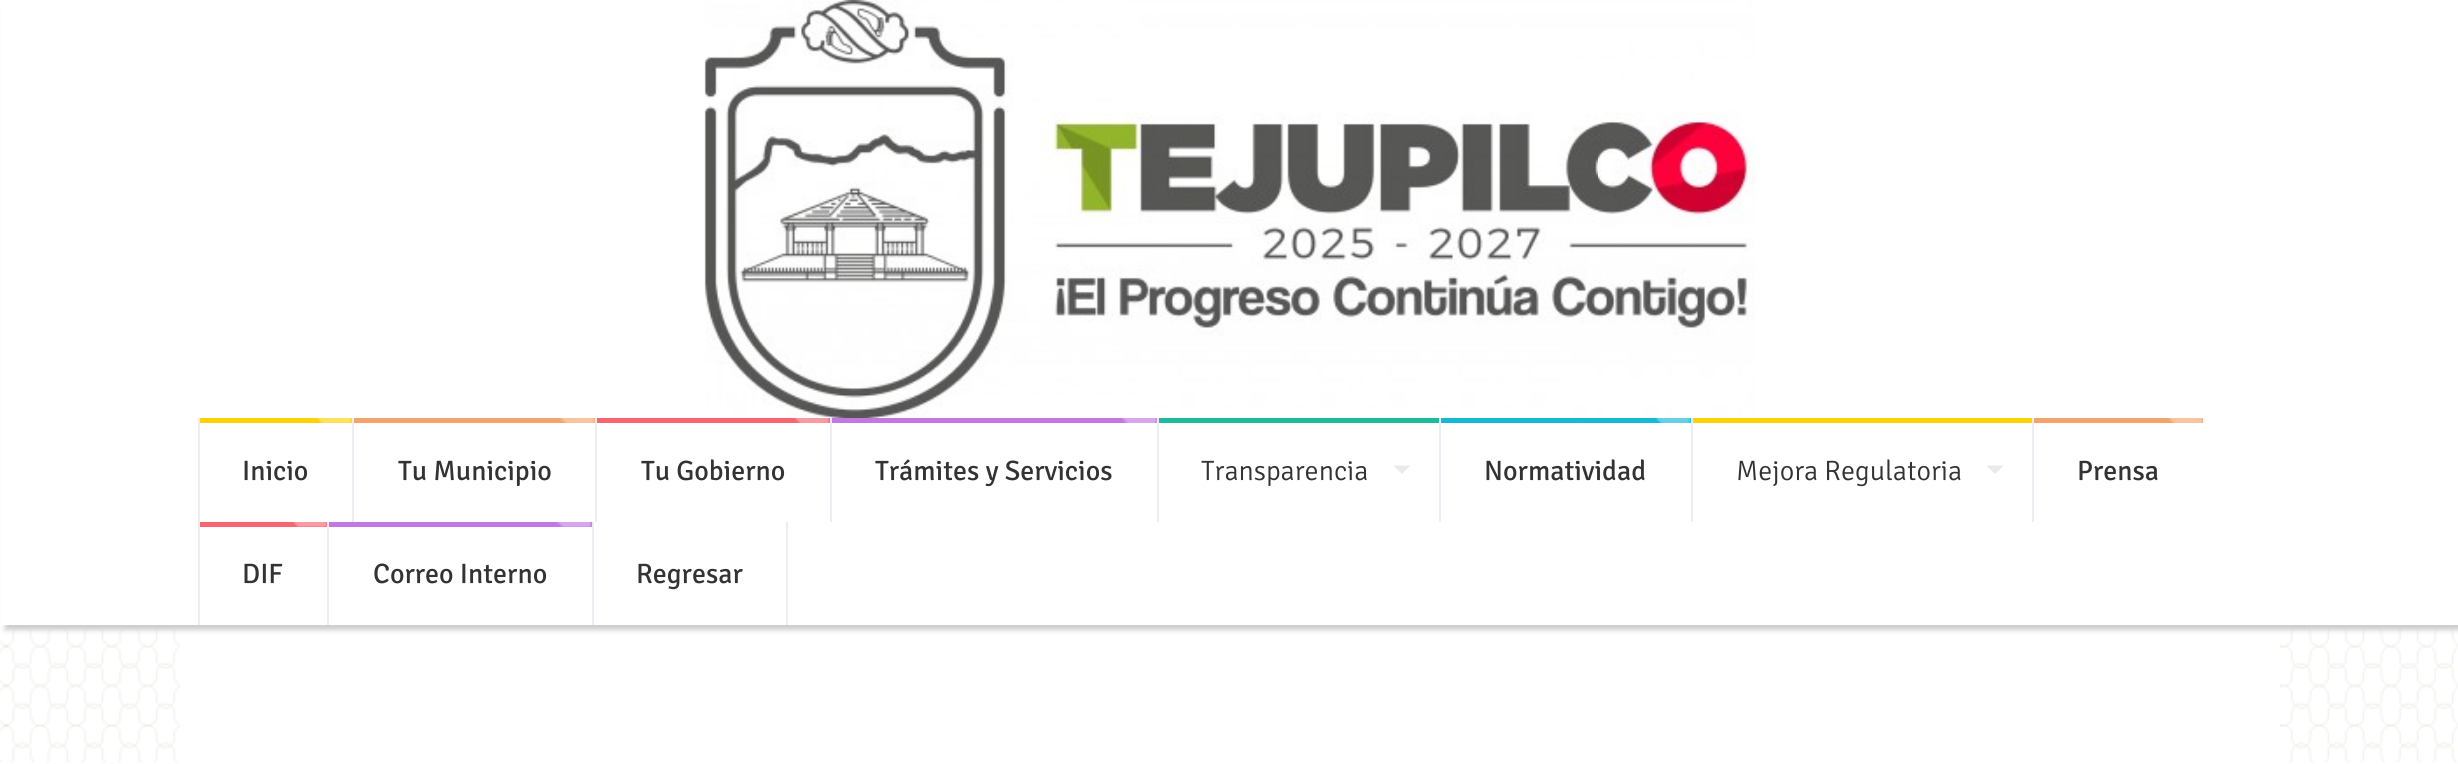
import math
import cairo


def use_color(cr, r, g, b):
  cr.set_source_rgb(r / 255, g / 255, b / 255)

def text(cr, x, y, s, family, size, color, bold=False, italic=False):
  cr.select_font_face(family, cairo.FONT_SLANT_ITALIC if italic else cairo.FONT_SLANT_NORMAL, cairo.FONT_WEIGHT_BOLD if bold else cairo.FONT_WEIGHT_NORMAL)
  cr.set_font_size(size)
  use_color(cr, *color)
  cr.move_to(x, y)
  cr.show_text(s)

def box(cr, x, y, w, h, *color):
  use_color(cr, *color)
  cr.rectangle(x, y, w, h)
  cr.fill()

def round_rect(cr, x, y, w, h, r):
  cr.new_sub_path()
  for i, (u, v) in enumerate([(x + w - r, y + h - r), (x + r, y + h - r), (x + r, y + r), (x + w - r, y + r)]):
    cr.arc(u, v, r, i * math.pi / 2, (i + 1) * math.pi / 2)
  cr.close_path()

def shadow(cr, x, y, w, h, r, blur, alpha):
  cr.push_group_with_content(cairo.CONTENT_ALPHA)
  cr.set_operator(cairo.OPERATOR_SOURCE)
  for i in range(15, -16, -2):
    e = blur * i / 6
    if min(w, h) + 2 * e > 0:
      cr.set_source_rgba(0, 0, 0, alpha * math.erfc((i - 1) / 8.5) / 2)
      round_rect(cr, x - e, y - e, w + 2 * e, h + 2 * e, max(0, min(r + e + blur * .6, min(w, h) / 2 + e)))
      cr.fill()
  cr.mask(cr.pop_group())

def picture(cr, path, x, y, w, h):
  cr.save()
  cr.set_source_surface(cairo.ImageSurface.create_from_png(path), x, y)
  cr.rectangle(x, y, w, h)
  cr.fill()
  cr.restore()

def draw(cr):
  use_color(cr, 255, 255, 255)
  cr.paint()
  picture(cr, "img_01.png", 0, 625, 2458, 138)
  box(cr, 180, 625, 2100, 138, 255, 255, 255)
  use_color(cr, 204, 204, 204)
  shadow(cr, 5, 5, 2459, 625, 0, 2.5, 1)
  box(cr, 1, 1, 2457, 624, 255, 255, 255)
  picture(cr, "img_02.png", 704, 0, 1051, 418)
  box(cr, 198, 418, 154, 5, 255, 210, 5)
  picture(cr, "img_03.png", 316, 418, 36, 5)
  box(cr, 198, 418, 2, 104, 235, 238, 242)
  box(cr, 352, 418, 243, 5, 243, 164, 107)
  picture(cr, "img_04.png", 560, 418, 35, 5)
  box(cr, 352, 418, 2, 104, 235, 238, 242)
  box(cr, 595, 418, 235, 5, 247, 101, 112)
  picture(cr, "img_05.png", 794, 418, 36, 5)
  box(cr, 595, 418, 2, 104, 235, 238, 242)
  box(cr, 830, 418, 327, 5, 195, 119, 228)
  picture(cr, "img_06.png", 1122, 418, 35, 5)
  box(cr, 830, 418, 2, 104, 235, 238, 242)
  box(cr, 1157, 418, 282, 5, 27, 188, 155)
  box(cr, 1157, 418, 2, 104, 235, 238, 242)
  use_color(cr, 234, 234, 234)
  cr.new_path()
  cr.move_to(1393, 465.5)
  cr.line_to(1410.5, 465.5)
  cr.line_to(1402, 474)
  cr.close_path()
  cr.fill()
  box(cr, 1439, 418, 252, 5, 20, 185, 213)
  picture(cr, "img_07.png", 1655, 418, 36, 5)
  box(cr, 1439, 418, 2, 104, 235, 238, 242)
  box(cr, 1691, 418, 341, 5, 255, 210, 5)
  box(cr, 1691, 418, 2, 104, 235, 238, 242)
  use_color(cr, 234, 234, 234)
  cr.new_path()
  cr.move_to(1986, 465.5)
  cr.line_to(2004, 465.5)
  cr.line_to(1995, 474)
  cr.close_path()
  cr.fill()
  box(cr, 2032, 418, 171, 5, 243, 164, 107)
  picture(cr, "img_08.png", 2168, 418, 35, 5)
  box(cr, 2032, 418, 2, 104, 235, 238, 242)
  box(cr, 198, 522, 129, 5, 247, 101, 112)
  picture(cr, "img_09.png", 292, 522, 35, 5)
  box(cr, 198, 522, 2, 103, 235, 238, 242)
  box(cr, 327, 522, 265, 5, 195, 119, 228)
  picture(cr, "img_10.png", 556, 522, 36, 5)
  box(cr, 327, 522, 2, 103, 235, 238, 242)
  box(cr, 786, 522, 2, 103, 235, 238, 242)
  box(cr, 592, 522, 2, 103, 235, 238, 242)
  text(cr, 242, 480, "Inicio", "Signika", 28, (51, 51, 51))
  text(cr, 398, 480, "Tu Municipio", "Signika", 28, (51, 51, 51))
  text(cr, 641, 480, "Tu Gobierno", "Signika", 28, (51, 51, 51))
  text(cr, 875, 480, "Trámites y Servicios", "Signika", 28, (51, 51, 51))
  text(cr, 1201, 480, "Transparencia", "Signika Light", 28, (51, 51, 51))
  text(cr, 1484, 480, "Normatividad", "Signika", 28, (51, 51, 51))
  text(cr, 1736, 480, "Mejora Regulatoria", "Signika Light", 28, (51, 51, 51))
  text(cr, 2077, 480, "Prensa", "Signika", 28, (51, 51, 51))
  text(cr, 242, 583, "DIF", "Signika", 28, (51, 51, 51))
  text(cr, 373, 583, "Correo Interno", "Signika", 28, (51, 51, 51))
  text(cr, 636, 583, "Regresar", "Signika", 28, (51, 51, 51))


surface = cairo.ImageSurface(cairo.FORMAT_RGB24, 2458, 764)
cr = cairo.Context(surface)
options = cairo.FontOptions()
options.set_hint_metrics(cairo.HINT_METRICS_OFF)
options.set_hint_style(cairo.HINT_STYLE_NONE)
cr.set_font_options(options)
cr.set_miter_limit(4)
draw(cr)
surface.write_to_png("out.png")
